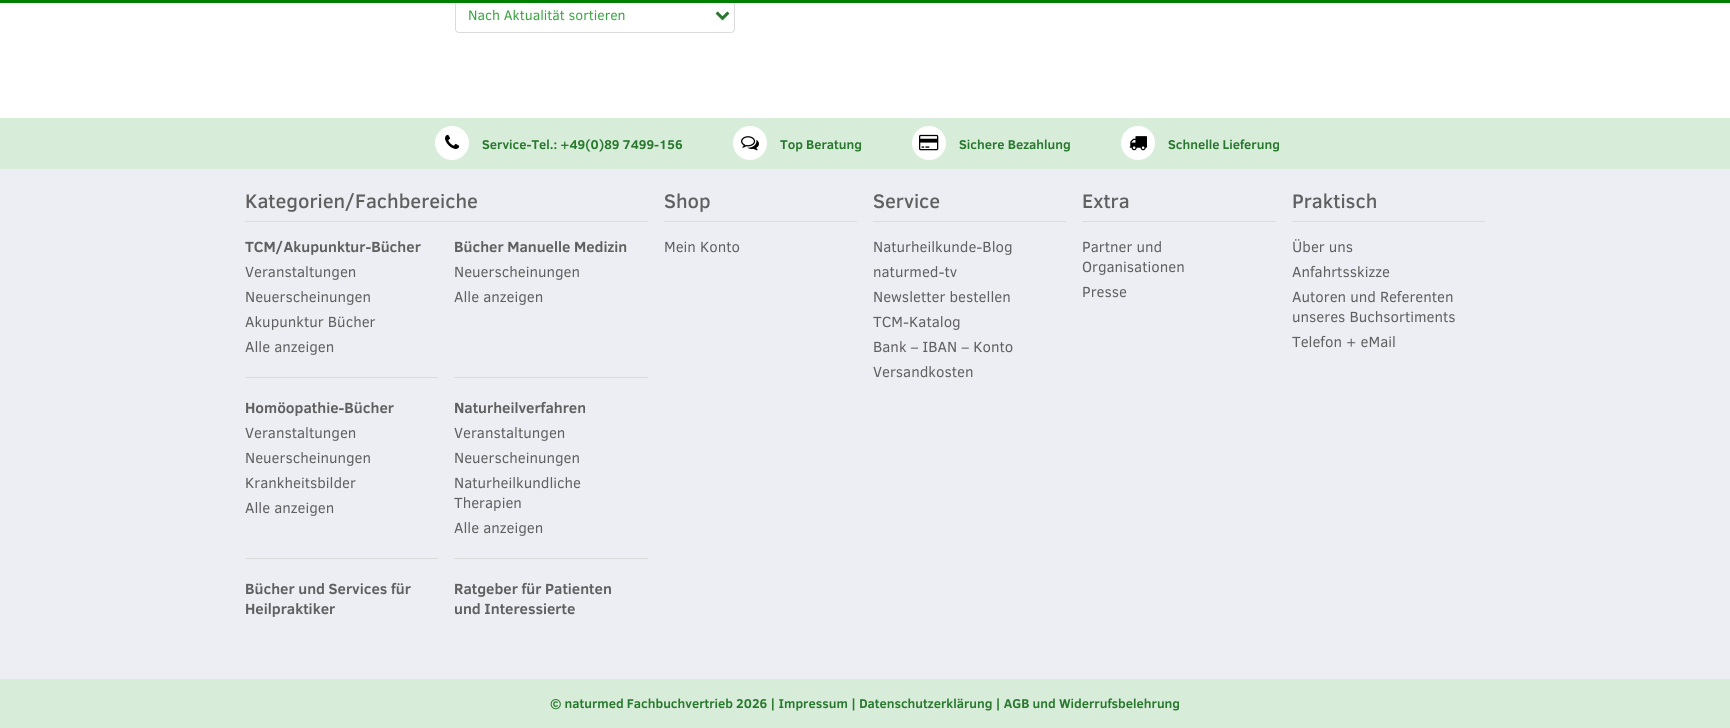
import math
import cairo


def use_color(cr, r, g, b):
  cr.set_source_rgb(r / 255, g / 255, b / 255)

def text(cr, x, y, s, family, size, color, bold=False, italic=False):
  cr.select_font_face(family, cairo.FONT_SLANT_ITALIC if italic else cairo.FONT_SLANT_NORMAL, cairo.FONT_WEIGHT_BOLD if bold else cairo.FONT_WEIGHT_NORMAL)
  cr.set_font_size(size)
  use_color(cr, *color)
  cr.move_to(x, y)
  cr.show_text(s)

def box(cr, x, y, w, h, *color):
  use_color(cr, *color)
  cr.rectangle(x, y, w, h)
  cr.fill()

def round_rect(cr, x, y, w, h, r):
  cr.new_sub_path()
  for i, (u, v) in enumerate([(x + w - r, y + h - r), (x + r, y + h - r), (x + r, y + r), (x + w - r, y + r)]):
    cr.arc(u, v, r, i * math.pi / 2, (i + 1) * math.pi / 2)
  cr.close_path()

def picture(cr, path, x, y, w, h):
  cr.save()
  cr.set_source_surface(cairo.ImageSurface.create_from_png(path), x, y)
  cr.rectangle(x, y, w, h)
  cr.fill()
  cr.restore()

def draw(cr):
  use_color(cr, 255, 255, 255)
  cr.paint()
  round_rect(cr, 455.5, -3.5, 279, 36, 3.5)
  use_color(cr, 220, 220, 220)
  cr.set_line_width(1)
  cr.stroke()
  box(cr, 0, 0, 1730, 3, 0, 128, 0)
  picture(cr, "img_01.png", 715, 11, 15, 10)
  box(cr, 0, 118, 1730, 51, 215, 237, 217)
  use_color(cr, 255, 255, 255)
  cr.arc(452, 143, 17, 0, 2 * math.pi)
  cr.fill()
  picture(cr, "img_02.png", 445, 134, 15, 15)
  cr.arc(750, 143, 17, 0, 2 * math.pi)
  cr.fill()
  picture(cr, "img_03.png", 741, 136, 18, 15)
  cr.arc(929, 143, 17, 0, 2 * math.pi)
  cr.fill()
  picture(cr, "img_04.png", 919, 134, 20, 17)
  cr.arc(1138, 143, 17, 0, 2 * math.pi)
  cr.fill()
  picture(cr, "img_05.png", 1129, 136, 18, 15)
  box(cr, 0, 169, 1730, 510, 236, 238, 243)
  box(cr, 245, 221, 403, 1, 220, 220, 220)
  box(cr, 245, 377, 193, 1, 220, 220, 220)
  box(cr, 454, 377, 194, 1, 220, 220, 220)
  box(cr, 245, 558, 193, 1, 220, 220, 220)
  box(cr, 454, 558, 194, 1, 220, 220, 220)
  box(cr, 664, 221, 193, 1, 220, 220, 220)
  box(cr, 873, 221, 193, 1, 220, 220, 220)
  box(cr, 1082, 221, 194, 1, 220, 220, 220)
  box(cr, 1292, 221, 193, 1, 220, 220, 220)
  box(cr, 0, 679, 1730, 49, 215, 237, 217)
  text(cr, 468, 20, "Nach Aktualität sortieren", "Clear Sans", 14, (57, 165, 65))
  text(cr, 482, 149, "Service-Tel.: +49(0)89 7499-156", "Clear Sans", 13, (40, 120, 45), bold=True)
  text(cr, 780, 149, "Top Beratung", "Clear Sans", 13, (40, 120, 45), bold=True)
  text(cr, 959, 149, "Sichere Bezahlung", "Clear Sans", 13, (40, 120, 45), bold=True)
  text(cr, 1168, 149, "Schnelle Lieferung", "Clear Sans", 13, (40, 120, 45), bold=True)
  text(cr, 245, 208, "Kategorien/Fachbereiche", "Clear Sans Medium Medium", 20, (97, 96, 96))
  text(cr, 245, 252, "TCM/Akupunktur-Bücher", "Clear Sans", 15, (97, 96, 96), bold=True)
  text(cr, 245, 277, "Veranstaltungen", "Clear Sans", 15, (97, 96, 96))
  text(cr, 245, 302, "Neuerscheinungen", "Clear Sans", 15, (97, 96, 96))
  text(cr, 245, 327, "Akupunktur Bücher", "Clear Sans", 15, (97, 96, 96))
  text(cr, 245, 352, "Alle anzeigen", "Clear Sans", 15, (97, 96, 96))
  text(cr, 454, 252, "Bücher Manuelle Medizin", "Clear Sans", 15, (97, 96, 96), bold=True)
  text(cr, 454, 277, "Neuerscheinungen", "Clear Sans", 15, (97, 96, 96))
  text(cr, 454, 302, "Alle anzeigen", "Clear Sans", 15, (97, 96, 96))
  text(cr, 245, 413, "Homöopathie-Bücher", "Clear Sans", 15, (97, 96, 96), bold=True)
  text(cr, 245, 438, "Veranstaltungen", "Clear Sans", 15, (97, 96, 96))
  text(cr, 245, 463, "Neuerscheinungen", "Clear Sans", 15, (97, 96, 96))
  text(cr, 245, 488, "Krankheitsbilder", "Clear Sans", 15, (97, 96, 96))
  text(cr, 245, 513, "Alle anzeigen", "Clear Sans", 15, (97, 96, 96))
  text(cr, 454, 413, "Naturheilverfahren", "Clear Sans", 15, (97, 96, 96), bold=True)
  text(cr, 454, 438, "Veranstaltungen", "Clear Sans", 15, (97, 96, 96))
  text(cr, 454, 463, "Neuerscheinungen", "Clear Sans", 15, (97, 96, 96))
  text(cr, 454, 488, "Naturheilkundliche", "Clear Sans", 15, (97, 96, 96))
  text(cr, 454, 508, "Therapien", "Clear Sans", 15, (97, 96, 96))
  text(cr, 454, 533, "Alle anzeigen", "Clear Sans", 15, (97, 96, 96))
  text(cr, 245, 594, "Bücher und Services für", "Clear Sans", 15, (97, 96, 96), bold=True)
  text(cr, 245, 614, "Heilpraktiker", "Clear Sans", 15, (97, 96, 96), bold=True)
  text(cr, 454, 594, "Ratgeber für Patienten", "Clear Sans", 15, (97, 96, 96), bold=True)
  text(cr, 454, 614, "und Interessierte", "Clear Sans", 15, (97, 96, 96), bold=True)
  text(cr, 664, 208, "Shop", "Clear Sans Medium Medium", 20, (97, 96, 96))
  text(cr, 664, 252, "Mein Konto", "Clear Sans", 15, (97, 96, 96))
  text(cr, 873, 208, "Service", "Clear Sans Medium Medium", 20, (97, 96, 96))
  text(cr, 873, 252, "Naturheilkunde-Blog", "Clear Sans", 15, (97, 96, 96))
  text(cr, 873, 277, "naturmed-tv", "Clear Sans", 15, (97, 96, 96))
  text(cr, 873, 302, "Newsletter bestellen", "Clear Sans", 15, (97, 96, 96))
  text(cr, 873, 327, "TCM-Katalog", "Clear Sans", 15, (97, 96, 96))
  text(cr, 873, 352, "Bank – IBAN – Konto", "Clear Sans", 15, (97, 96, 96))
  text(cr, 873, 377, "Versandkosten", "Clear Sans", 15, (97, 96, 96))
  text(cr, 1082, 208, "Extra", "Clear Sans Medium Medium", 20, (97, 96, 96))
  text(cr, 1082, 252, "Partner und", "Clear Sans", 15, (97, 96, 96))
  text(cr, 1082, 272, "Organisationen", "Clear Sans", 15, (97, 96, 96))
  text(cr, 1082, 297, "Presse", "Clear Sans", 15, (97, 96, 96))
  text(cr, 1292, 208, "Praktisch", "Clear Sans Medium Medium", 20, (97, 96, 96))
  text(cr, 1292, 252, "Über uns", "Clear Sans", 15, (97, 96, 96))
  text(cr, 1292, 277, "Anfahrtsskizze", "Clear Sans", 15, (97, 96, 96))
  text(cr, 1292, 302, "Autoren und Referenten", "Clear Sans", 15, (97, 96, 96))
  text(cr, 1292, 322, "unseres Buchsortiments", "Clear Sans", 15, (97, 96, 96))
  text(cr, 1292, 347, "Telefon + eMail", "Clear Sans", 15, (97, 96, 96))
  text(cr, 550, 708, "© naturmed Fachbuchvertrieb 2026 | Impressum | Datenschutzerklärung | AGB und Widerrufsbelehrung", "Clear Sans", 13, (40, 120, 45), bold=True)


surface = cairo.ImageSurface(cairo.FORMAT_RGB24, 1730, 728)
cr = cairo.Context(surface)
options = cairo.FontOptions()
options.set_hint_metrics(cairo.HINT_METRICS_OFF)
options.set_hint_style(cairo.HINT_STYLE_NONE)
cr.set_font_options(options)
cr.set_miter_limit(4)
draw(cr)
surface.write_to_png("out.png")
